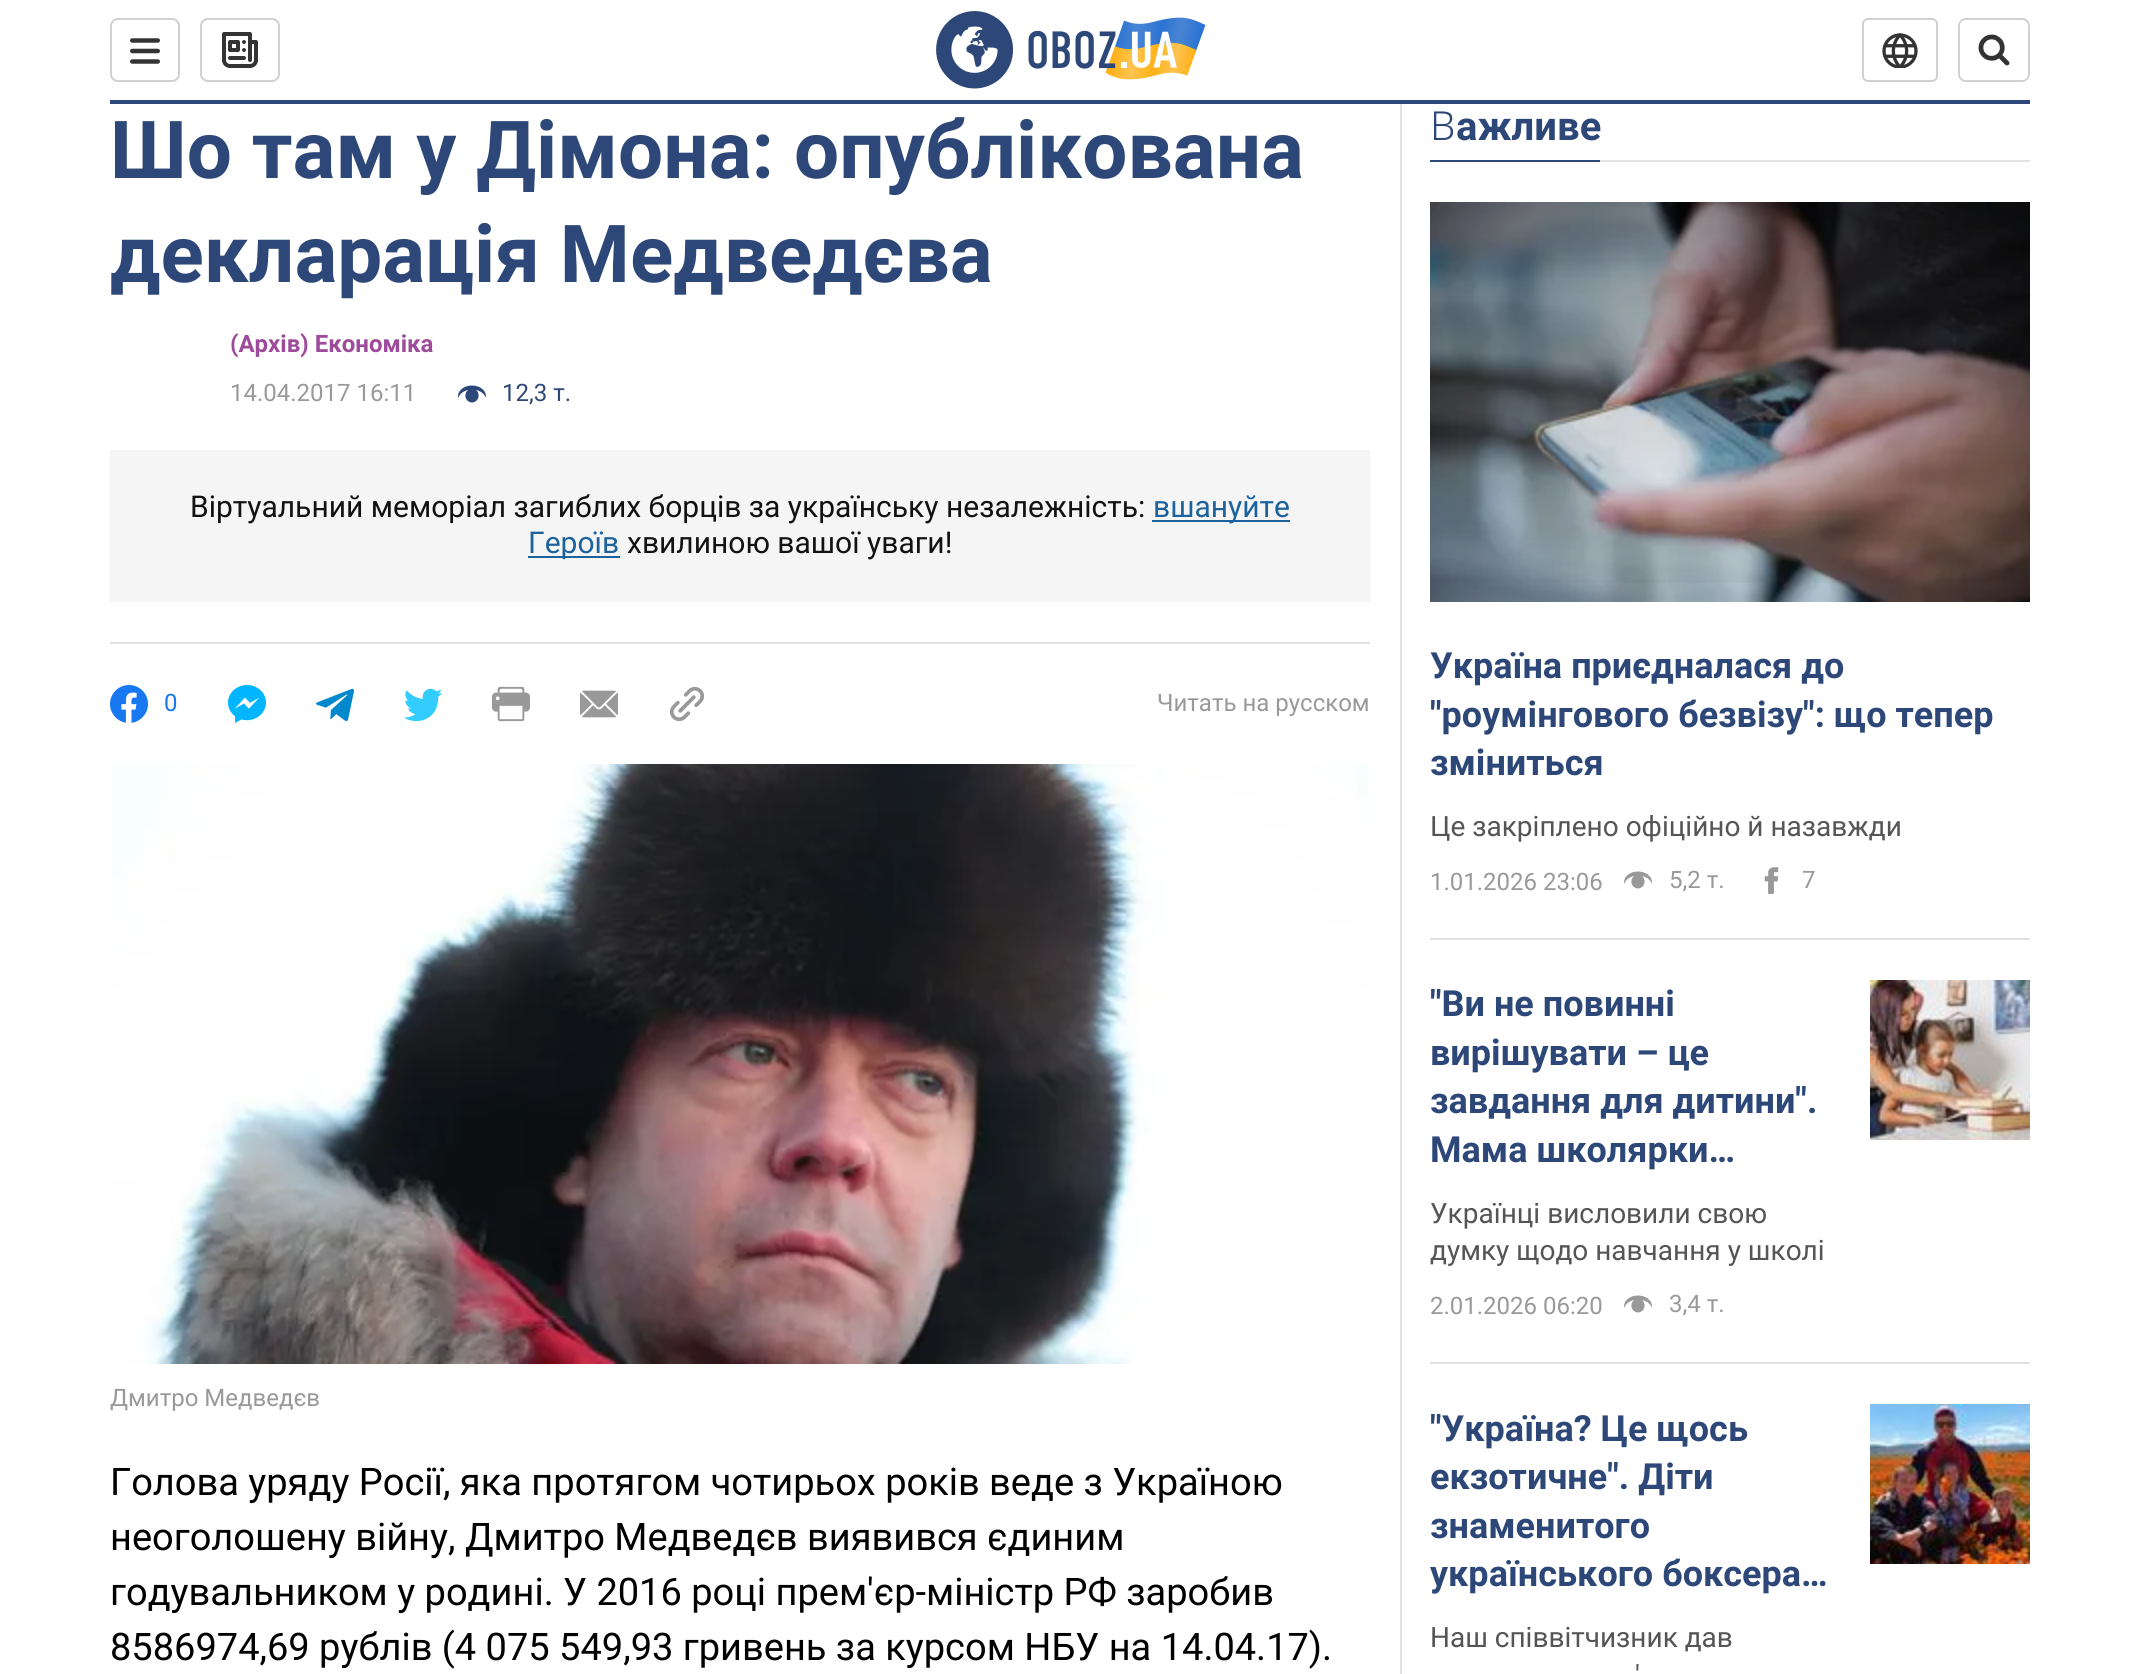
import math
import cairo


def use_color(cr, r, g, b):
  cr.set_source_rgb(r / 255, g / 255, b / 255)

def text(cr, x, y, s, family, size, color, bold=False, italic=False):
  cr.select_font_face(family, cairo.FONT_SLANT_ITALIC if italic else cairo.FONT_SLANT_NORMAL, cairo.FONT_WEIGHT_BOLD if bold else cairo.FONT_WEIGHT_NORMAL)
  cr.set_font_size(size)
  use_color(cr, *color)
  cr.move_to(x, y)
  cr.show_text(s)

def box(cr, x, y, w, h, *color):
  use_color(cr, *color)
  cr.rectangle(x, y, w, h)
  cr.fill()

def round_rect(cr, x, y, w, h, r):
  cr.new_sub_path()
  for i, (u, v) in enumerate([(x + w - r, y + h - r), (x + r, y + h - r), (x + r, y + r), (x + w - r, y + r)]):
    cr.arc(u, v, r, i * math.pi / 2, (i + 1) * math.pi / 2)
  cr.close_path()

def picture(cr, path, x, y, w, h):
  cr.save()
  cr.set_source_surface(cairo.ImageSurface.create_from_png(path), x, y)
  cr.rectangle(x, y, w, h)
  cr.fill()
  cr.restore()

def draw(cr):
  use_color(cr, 255, 255, 255)
  cr.paint()
  box(cr, 1400, 100, 2, 1574, 226, 226, 226)
  box(cr, 1400, 100, 2, 4, 255, 255, 255)
  box(cr, 110, 100, 1920, 4, 45, 72, 120)
  round_rect(cr, 111, 19, 68, 62, 7)
  use_color(cr, 208, 208, 208)
  cr.stroke()
  picture(cr, "img_01.png", 130, 38, 30, 26)
  round_rect(cr, 201, 19, 78, 62, 7)
  cr.stroke()
  picture(cr, "img_02.png", 222, 32, 36, 36)
  picture(cr, "img_03.png", 936, 11, 270, 78)
  round_rect(cr, 1863, 19, 74, 62, 5)
  cr.stroke()
  picture(cr, "img_04.png", 1882, 33, 36, 35)
  round_rect(cr, 1959, 19, 70, 62, 7)
  cr.stroke()
  use_color(cr, 255, 255, 255)
  round_rect(cr, 1960, 20, 68, 60, 6)
  cr.fill()
  picture(cr, "img_05.png", 1978, 34, 32, 32)
  box(cr, 110, 642, 1260, 2, 226, 226, 226)
  picture(cr, "img_06.png", 458, 385, 28, 18)
  box(cr, 110, 450, 1260, 152, 245, 245, 245)
  box(cr, 1152, 520, 138, 2, 28, 98, 156)
  box(cr, 528, 556, 92, 2, 28, 98, 156)
  picture(cr, "img_07.png", 110, 685, 38, 38)
  picture(cr, "img_08.png", 228, 685, 38, 38)
  picture(cr, "img_09.png", 316, 688, 38, 34)
  picture(cr, "img_10.png", 404, 688, 38, 34)
  picture(cr, "img_11.png", 492, 686, 38, 36)
  picture(cr, "img_12.png", 580, 690, 38, 28)
  picture(cr, "img_13.png", 669, 686, 36, 36)
  picture(cr, "img_14.png", 110, 764, 1260, 600)
  box(cr, 1600, 160, 430, 2, 226, 226, 226)
  box(cr, 1430, 160, 170, 2, 45, 72, 120)
  box(cr, 1430, 938, 600, 2, 226, 226, 226)
  picture(cr, "img_15.png", 1430, 202, 600, 400)
  gradient = cairo.LinearGradient(1730, 202, 1730, 612)
  gradient.add_color_stop_rgba(0, 0, 0, 0, 0.3)
  gradient.add_color_stop_rgba(1, 0, 0, 0, 0)
  cr.set_source(gradient)
  cr.rectangle(1430, 202, 600, 381)
  cr.fill()
  picture(cr, "img_16.png", 1624, 871, 28, 18)
  picture(cr, "img_17.png", 1764, 867, 15, 27)
  box(cr, 1430, 1362, 600, 2, 226, 226, 226)
  picture(cr, "img_16.png", 1624, 1295, 28, 18)
  picture(cr, "img_18.png", 1870, 980, 160, 160)
  picture(cr, "img_19.png", 1870, 1404, 160, 160)
  text(cr, 110, 178, "Шо там у Дімона: опублікована", "Roboto", 80, (45, 72, 120), bold=True)
  text(cr, 110, 282, "декларація Медведєва", "Roboto", 80, (45, 72, 120), bold=True)
  text(cr, 230, 352, "(Архів) Економіка", "Roboto", 24, (157, 75, 154), bold=True)
  text(cr, 230, 401, "14.04.2017 16:11", "Roboto", 24, (153, 153, 153))
  text(cr, 502, 401, "12,3 т.", "Roboto", 24, (45, 72, 120))
  text(cr, 190, 517, "Віртуальний меморіал загиблих борців за українську незалежність:", "Roboto", 30, (18, 18, 18))
  text(cr, 1153, 517, "вшануйте", "Roboto", 30, (28, 98, 156))
  text(cr, 528, 553, "Героїв", "Roboto", 30, (28, 98, 156))
  text(cr, 627, 553, "хвилиною вашої уваги!", "Roboto", 30, (18, 18, 18))
  text(cr, 164, 711, "0", "Roboto", 24, (23, 120, 242))
  text(cr, 1157, 711, "Читать на русском", "Roboto", 24, (153, 153, 153))
  text(cr, 110, 1406, "Дмитро Медведєв", "Roboto", 24, (153, 153, 153))
  text(cr, 110, 1495, "Голова уряду Росії, яка протягом чотирьох років веде з Україною", "Roboto", 38, (0, 0, 0))
  text(cr, 110, 1550, "неоголошену війну, Дмитро Медведєв виявився єдиним", "Roboto", 38, (0, 0, 0))
  text(cr, 110, 1605, "годувальником у родині. У 2016 році прем'єр-міністр РФ заробив", "Roboto", 38, (0, 0, 0))
  text(cr, 110, 1660, "8586974,69 рублів (4 075 549,93 гривень за курсом НБУ на 14.04.17).", "Roboto", 38, (0, 0, 0))
  text(cr, 1430, 140, "В", "Noto Sans Light", 40, (45, 72, 120))
  text(cr, 1456, 140, "ажливе", "Roboto", 40, (45, 72, 120), bold=True)
  text(cr, 1430, 678, "Україна приєдналася до", "Roboto", 36, (45, 72, 120), bold=True)
  text(cr, 1430, 727, "\"роумінгового безвізу\": що тепер", "Roboto", 36, (45, 72, 120), bold=True)
  text(cr, 1430, 775, "зміниться", "Roboto", 36, (45, 72, 120), bold=True)
  text(cr, 1430, 836, "Це закріплено офіційно й назавжди", "Roboto", 28, (85, 85, 85))
  text(cr, 1430, 890, "1.01.2026 23:06", "Roboto", 24, (153, 153, 153))
  text(cr, 1669, 888, "5,2 т.", "Roboto", 24, (153, 153, 153))
  text(cr, 1802, 888, "7", "Roboto", 24, (153, 153, 153))
  text(cr, 1430, 1016, "\"Ви не повинні", "Roboto", 36, (45, 72, 120), bold=True)
  text(cr, 1430, 1065, "вирішувати – це", "Roboto", 36, (45, 72, 120), bold=True)
  text(cr, 1430, 1113, "завдання для дитини\".", "Roboto", 36, (45, 72, 120), bold=True)
  text(cr, 1430, 1162, "Мама школярки…", "Roboto", 36, (45, 72, 120), bold=True)
  text(cr, 1430, 1223, "Українці висловили свою", "Roboto", 28, (85, 85, 85))
  text(cr, 1430, 1260, "думку щодо навчання у школі", "Roboto", 28, (85, 85, 85))
  text(cr, 1430, 1314, "2.01.2026 06:20", "Roboto", 24, (153, 153, 153))
  text(cr, 1669, 1312, "3,4 т.", "Roboto", 24, (153, 153, 153))
  text(cr, 1430, 1441, "\"Україна? Це щось", "Roboto", 36, (45, 72, 120), bold=True)
  text(cr, 1430, 1489, "екзотичне\". Діти", "Roboto", 36, (45, 72, 120), bold=True)
  text(cr, 1430, 1538, "знаменитого", "Roboto", 36, (45, 72, 120), bold=True)
  text(cr, 1430, 1586, "українського боксера…", "Roboto", 36, (45, 72, 120), bold=True)
  text(cr, 1430, 1647, "Наш співвітчизник дав", "Roboto", 28, (85, 85, 85))
  text(cr, 1635, 1685, "'", "Roboto", 28, (85, 85, 85))


surface = cairo.ImageSurface(cairo.FORMAT_RGB24, 2139, 1674)
cr = cairo.Context(surface)
options = cairo.FontOptions()
options.set_hint_metrics(cairo.HINT_METRICS_OFF)
options.set_hint_style(cairo.HINT_STYLE_NONE)
cr.set_font_options(options)
cr.set_miter_limit(4)
draw(cr)
surface.write_to_png("out.png")
